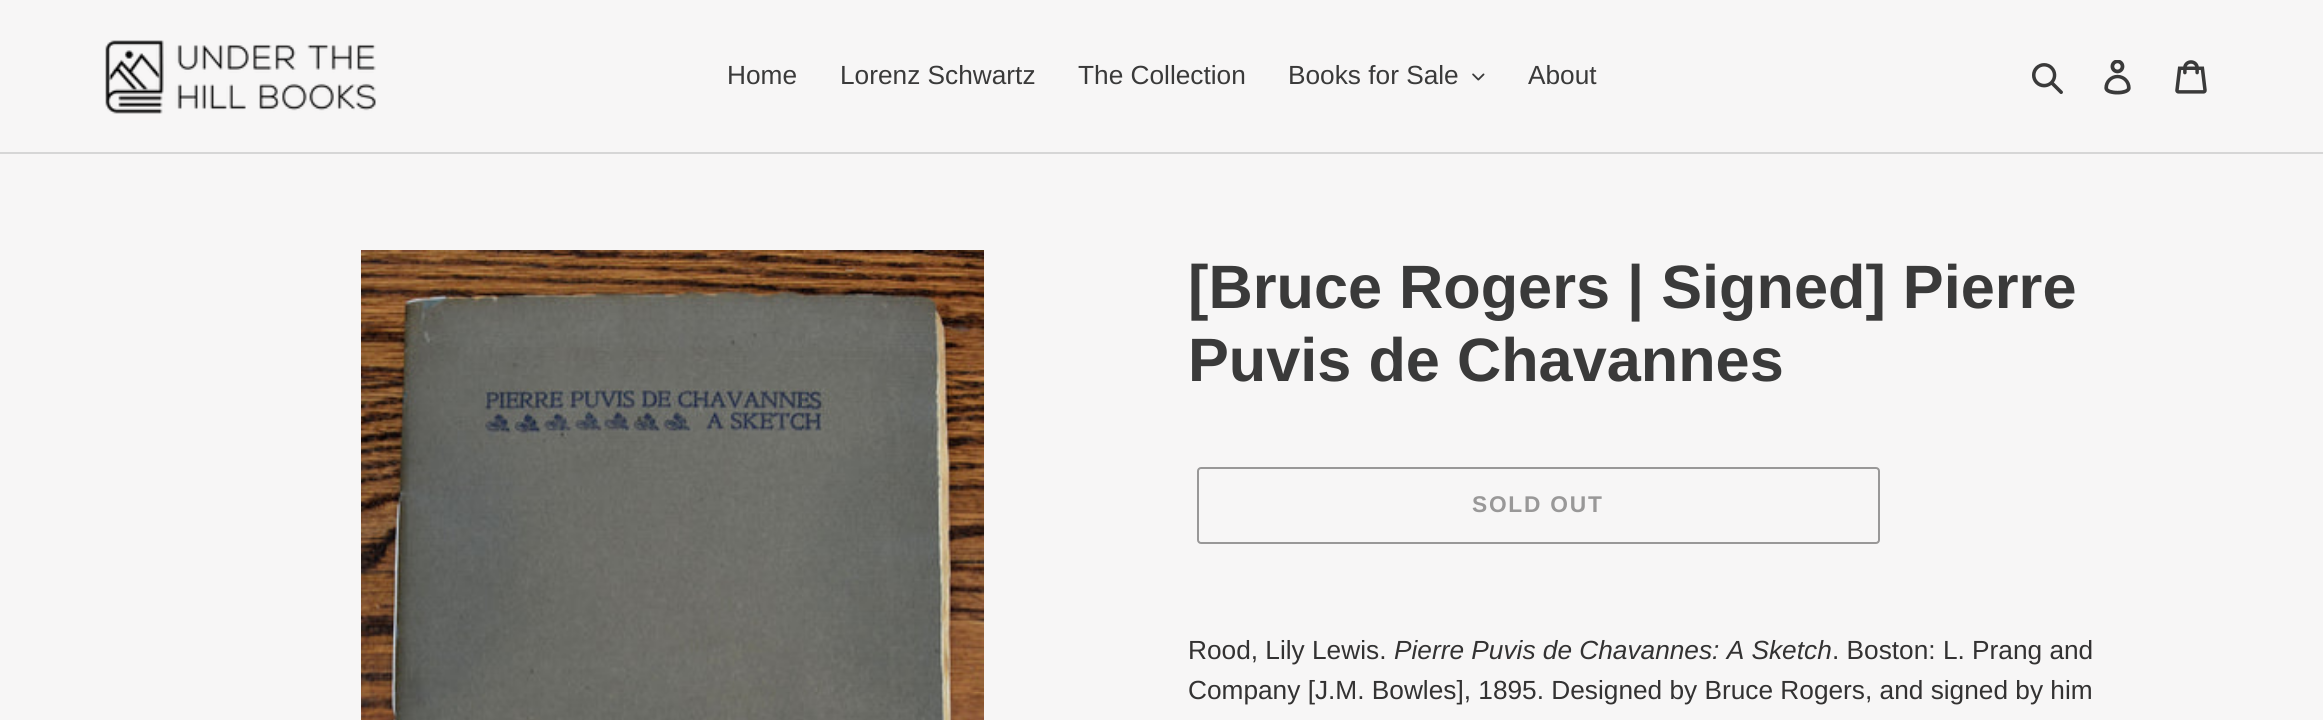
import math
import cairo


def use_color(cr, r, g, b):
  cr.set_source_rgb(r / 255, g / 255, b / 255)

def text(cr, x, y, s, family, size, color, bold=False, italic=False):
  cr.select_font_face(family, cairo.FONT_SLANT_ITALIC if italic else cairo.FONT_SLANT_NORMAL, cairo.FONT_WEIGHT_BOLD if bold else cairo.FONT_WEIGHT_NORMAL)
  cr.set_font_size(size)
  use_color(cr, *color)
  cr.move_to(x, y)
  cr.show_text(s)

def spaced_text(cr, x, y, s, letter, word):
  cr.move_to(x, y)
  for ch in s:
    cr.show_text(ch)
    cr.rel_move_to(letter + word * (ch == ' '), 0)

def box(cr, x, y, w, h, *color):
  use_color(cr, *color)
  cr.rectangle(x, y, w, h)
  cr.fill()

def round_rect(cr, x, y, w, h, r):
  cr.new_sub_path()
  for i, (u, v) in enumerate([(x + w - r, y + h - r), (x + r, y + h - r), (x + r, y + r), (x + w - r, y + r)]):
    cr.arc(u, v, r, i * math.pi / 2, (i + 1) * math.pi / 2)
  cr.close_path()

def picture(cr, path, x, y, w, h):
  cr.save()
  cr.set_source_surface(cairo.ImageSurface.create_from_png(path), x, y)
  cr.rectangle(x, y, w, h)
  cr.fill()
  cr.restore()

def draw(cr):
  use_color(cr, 247, 246, 246)
  cr.paint()
  box(cr, 0, 152, 2323, 2, 214, 214, 214)
  picture(cr, "img_01.png", 105, 40, 271, 74)
  picture(cr, "img_02.png", 1472, 73, 13, 8)
  picture(cr, "img_03.png", 2032, 63, 31, 31)
  picture(cr, "img_04.png", 2104, 60, 27, 35)
  picture(cr, "img_05.png", 2175, 60, 32, 34)
  picture(cr, "img_06.png", 361, 250, 623, 470)
  round_rect(cr, 1198, 468, 681, 75, 3)
  use_color(cr, 153, 152, 152)
  cr.stroke()
  text(cr, 727, 84, "Home", "Liberation Sans", 26.25, (58, 58, 58))
  text(cr, 840, 84, "Lorenz Schwartz", "Liberation Sans", 26.25, (58, 58, 58))
  text(cr, 1078, 84, "The Collection", "Liberation Sans", 26.25, (58, 58, 58))
  text(cr, 1288, 84, "Books for Sale", "Liberation Sans", 26.25, (58, 58, 58))
  text(cr, 1528, 84, "About", "Liberation Sans", 26.25, (58, 58, 58))
  text(cr, 1188, 308, "[Bruce Rogers | Signed] Pierre", "Liberation Sans", 61.25, (58, 58, 58), bold=True)
  text(cr, 1188, 381, "Puvis de Chavannes", "Liberation Sans", 61.25, (58, 58, 58), bold=True)
  cr.set_font_size(22.75)
  use_color(cr, 153, 152, 152)
  spaced_text(cr, 1472, 512, "SOLD OUT", 1.75, 0)
  text(cr, 1188, 659, "Rood, Lily Lewis.", "Liberation Sans", 26.25, (51, 50, 50))
  text(cr, 1394, 659, "Pierre Puvis de Chavannes: A Sketch", "Liberation Sans", 26.25, (51, 50, 50), italic=True)
  text(cr, 1832, 659, ". Boston: L. Prang and", "Liberation Sans", 26.25, (51, 50, 50))
  text(cr, 1188, 699, "Company [J.M. Bowles], 1895. Designed by Bruce Rogers, and signed by him", "Liberation Sans", 26.25, (51, 50, 50))


surface = cairo.ImageSurface(cairo.FORMAT_RGB24, 2323, 720)
cr = cairo.Context(surface)
options = cairo.FontOptions()
options.set_hint_metrics(cairo.HINT_METRICS_OFF)
options.set_hint_style(cairo.HINT_STYLE_NONE)
cr.set_font_options(options)
cr.set_miter_limit(4)
draw(cr)
surface.write_to_png("out.png")
